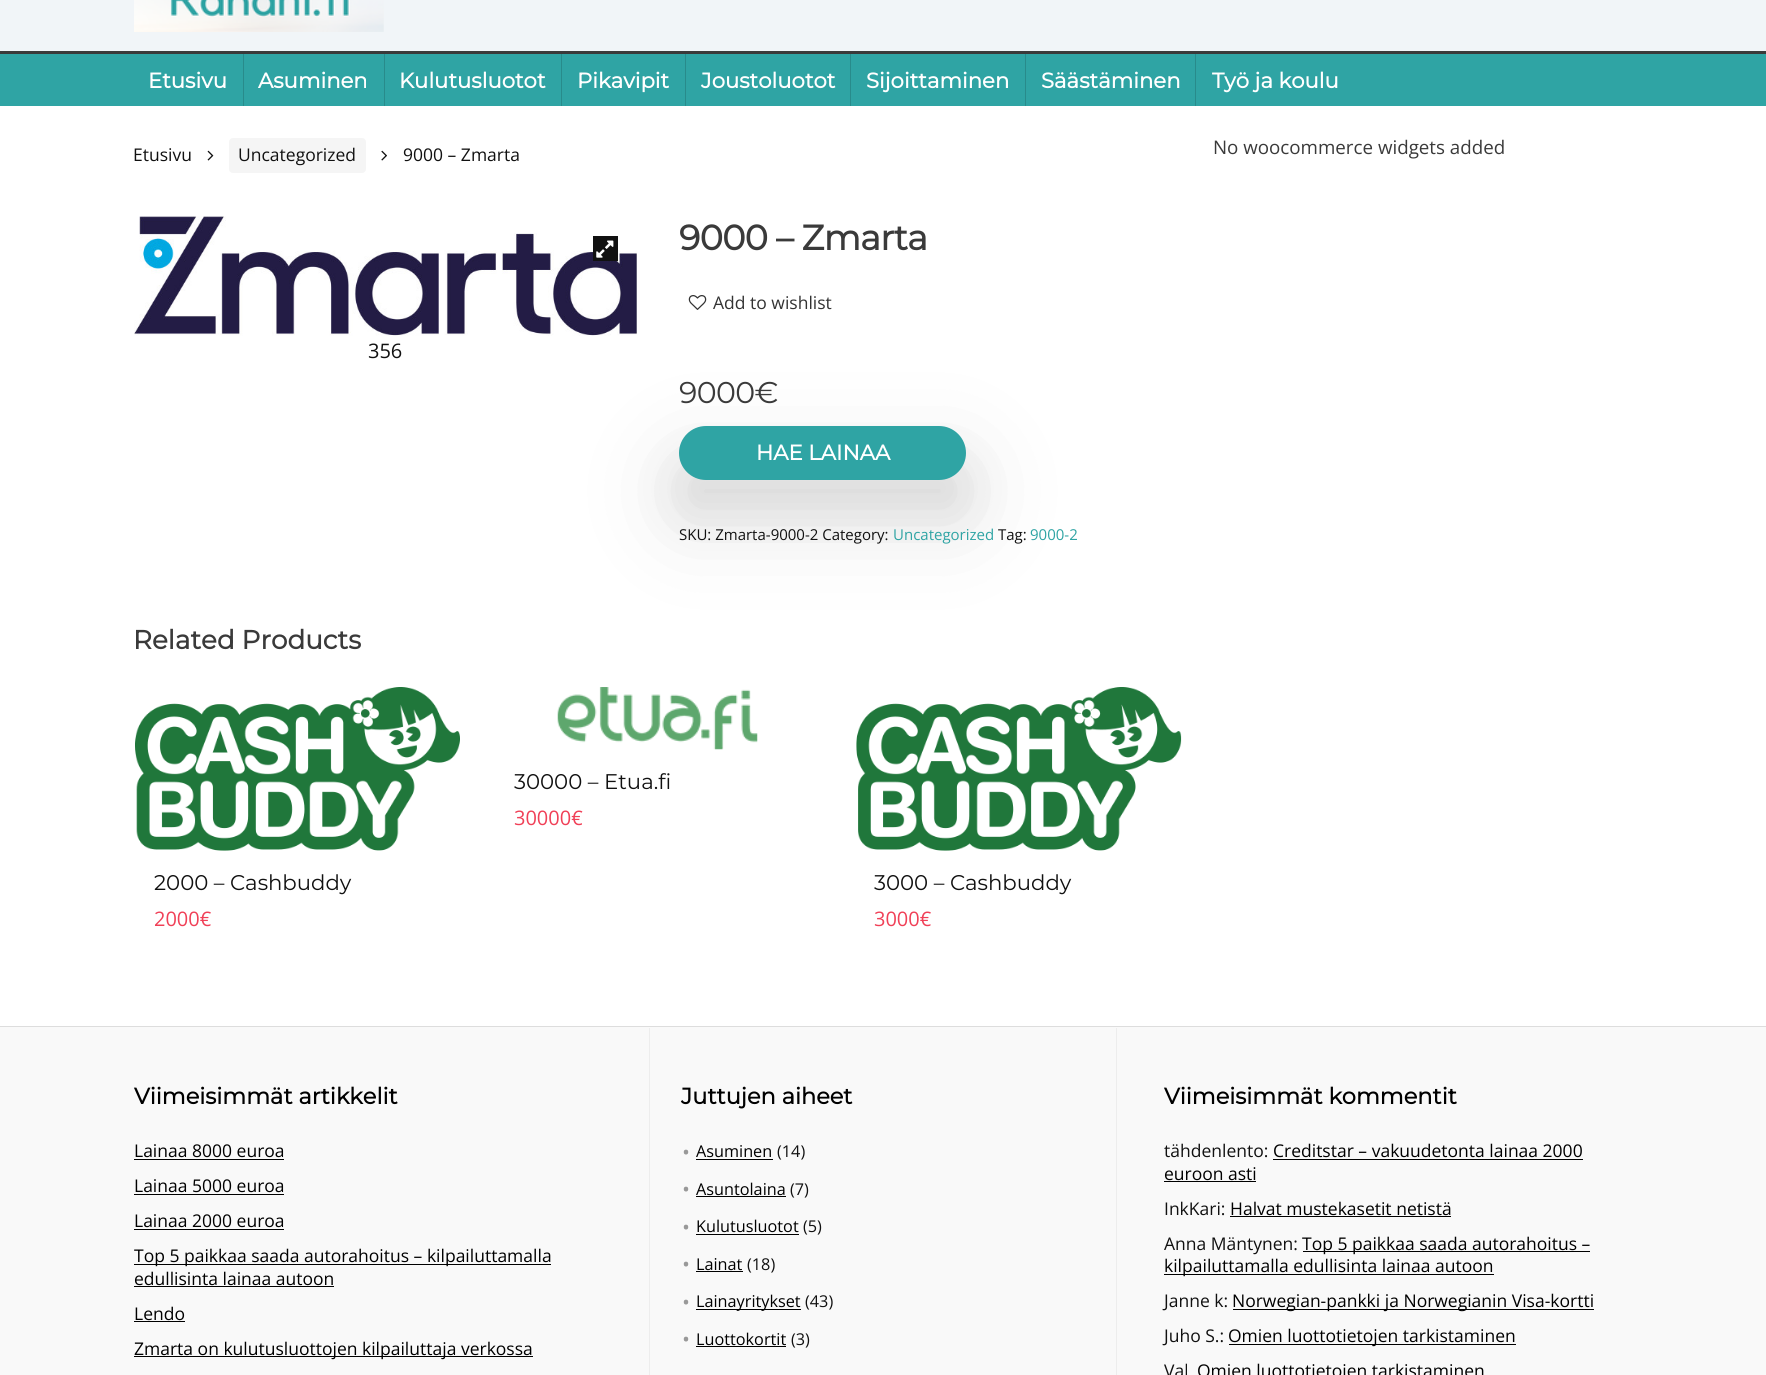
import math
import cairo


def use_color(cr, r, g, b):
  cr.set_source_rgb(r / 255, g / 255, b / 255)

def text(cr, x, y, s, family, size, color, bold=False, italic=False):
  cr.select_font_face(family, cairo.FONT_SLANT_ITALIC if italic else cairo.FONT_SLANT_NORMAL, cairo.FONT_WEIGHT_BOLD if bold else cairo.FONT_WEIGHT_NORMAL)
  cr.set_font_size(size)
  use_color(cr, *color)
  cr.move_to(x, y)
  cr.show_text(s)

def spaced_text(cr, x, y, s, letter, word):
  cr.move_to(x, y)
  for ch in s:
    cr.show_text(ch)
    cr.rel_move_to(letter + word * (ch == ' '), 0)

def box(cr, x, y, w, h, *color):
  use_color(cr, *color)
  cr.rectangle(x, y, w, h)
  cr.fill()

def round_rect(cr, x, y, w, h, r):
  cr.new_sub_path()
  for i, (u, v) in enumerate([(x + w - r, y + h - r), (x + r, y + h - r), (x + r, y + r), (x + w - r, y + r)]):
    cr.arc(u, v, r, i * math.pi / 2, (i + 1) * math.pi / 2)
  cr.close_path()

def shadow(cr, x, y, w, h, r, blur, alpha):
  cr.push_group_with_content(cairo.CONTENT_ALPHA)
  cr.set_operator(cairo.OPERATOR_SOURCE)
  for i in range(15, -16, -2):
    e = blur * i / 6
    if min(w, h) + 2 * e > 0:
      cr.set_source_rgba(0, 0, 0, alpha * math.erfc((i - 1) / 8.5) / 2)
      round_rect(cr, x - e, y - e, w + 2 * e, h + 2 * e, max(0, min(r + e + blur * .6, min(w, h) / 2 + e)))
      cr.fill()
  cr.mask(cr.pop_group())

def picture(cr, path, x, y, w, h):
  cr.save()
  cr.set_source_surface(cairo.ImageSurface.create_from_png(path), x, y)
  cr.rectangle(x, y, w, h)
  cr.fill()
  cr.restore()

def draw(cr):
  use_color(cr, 255, 255, 255)
  cr.paint()
  box(cr, 0, 0, 1766, 51, 241, 245, 248)
  picture(cr, "img_01.png", 134, 0, 250, 32)
  box(cr, 0, 54, 1766, 52, 47, 164, 164)
  box(cr, 0, 51, 1766, 3, 58, 58, 58)
  box(cr, 243, 54, 1, 52, 40, 139, 139)
  box(cr, 384, 54, 1, 52, 40, 139, 139)
  box(cr, 561, 54, 1, 52, 40, 139, 139)
  box(cr, 685, 54, 1, 52, 40, 139, 139)
  box(cr, 850, 54, 1, 52, 40, 139, 139)
  box(cr, 1025, 54, 1, 52, 40, 139, 139)
  box(cr, 1195, 54, 1, 52, 40, 139, 139)
  picture(cr, "img_02.png", 207, 150, 7, 11)
  use_color(cr, 245, 245, 245)
  round_rect(cr, 229, 138, 137, 35, 4)
  cr.fill()
  picture(cr, "img_03.png", 381, 150, 6, 11)
  picture(cr, "img_05.png", 134, 216, 503, 120)
  box(cr, 593, 236, 25, 25, 17, 17, 17)
  picture(cr, "img_04.png", 596, 240, 18, 18)
  picture(cr, "img_06.png", 688, 295, 19, 15)
  use_color(cr, 0, 0, 0)
  shadow(cr, 679, 464, 287, 54, 27, 50, 0.12)
  shadow(cr, 679, 461, 287, 54, 27, 24, 0.06)
  use_color(cr, 47, 164, 164)
  round_rect(cr, 679, 426, 287, 54, 27)
  cr.fill()
  picture(cr, "img_07.png", 557, 687, 201, 63)
  picture(cr, "img_08.png", 135, 687, 325, 164)
  picture(cr, "img_09.png", 856, 687, 326, 164)
  box(cr, 0, 1027, 1766, 348, 249, 249, 249)
  box(cr, 0, 1026, 1766, 1, 221, 221, 221)
  box(cr, 134, 1159, 150, 1, 0, 0, 0)
  box(cr, 134, 1194, 150, 1, 0, 0, 0)
  box(cr, 134, 1229, 150, 1, 0, 0, 0)
  box(cr, 134, 1264, 417, 1, 0, 0, 0)
  box(cr, 134, 1286, 200, 1, 0, 0, 0)
  box(cr, 134, 1321, 51, 1, 0, 0, 0)
  box(cr, 134, 1356, 399, 1, 0, 0, 0)
  box(cr, 1116, 1028, 1, 347, 237, 237, 237)
  box(cr, 649, 1028, 1, 347, 237, 237, 237)
  box(cr, 696, 1159, 77, 1, 0, 0, 0)
  box(cr, 696, 1196, 90, 1, 0, 0, 0)
  box(cr, 696, 1234, 103, 1, 0, 0, 0)
  box(cr, 696, 1271, 47, 1, 0, 0, 0)
  box(cr, 696, 1309, 105, 1, 0, 0, 0)
  box(cr, 696, 1346, 90, 1, 0, 0, 0)
  box(cr, 1273, 1159, 310, 1, 0, 0, 0)
  box(cr, 1164, 1181, 92, 1, 0, 0, 0)
  box(cr, 1230, 1216, 221, 1, 0, 0, 0)
  box(cr, 1303, 1251, 287, 1, 0, 0, 0)
  box(cr, 1164, 1274, 330, 1, 0, 0, 0)
  box(cr, 1233, 1309, 361, 1, 0, 0, 0)
  box(cr, 1229, 1344, 287, 1, 0, 0, 0)
  text(cr, 148, 88, "Etusivu", "Montserrat", 21.25, (255, 255, 255), bold=True)
  text(cr, 258, 88, "Asuminen", "Montserrat", 21.25, (255, 255, 255), bold=True)
  text(cr, 399, 88, "Kulutusluotot", "Montserrat", 21.25, (255, 255, 255), bold=True)
  text(cr, 577, 88, "Pikavipit", "Montserrat", 21.25, (255, 255, 255), bold=True)
  text(cr, 701, 88, "Joustoluotot", "Montserrat", 21.25, (255, 255, 255), bold=True)
  text(cr, 866, 88, "Sijoittaminen", "Montserrat", 21.25, (255, 255, 255), bold=True)
  text(cr, 1041, 88, "Säästäminen", "Montserrat", 21.25, (255, 255, 255), bold=True)
  text(cr, 1212, 88, "Työ ja koulu", "Montserrat", 21.25, (255, 255, 255), bold=True)
  text(cr, 133, 161, "Etusivu", "Open Sans", 17.5, (17, 17, 17))
  text(cr, 238, 161, "Uncategorized", "Open Sans", 17.5, (17, 17, 17))
  text(cr, 403, 161, "9000 – Zmarta", "Open Sans", 17.5, (17, 17, 17))
  text(cr, 368, 358, "356", "Open Sans", 20, (17, 17, 17))
  cr.select_font_face("Montserrat", cairo.FONT_SLANT_NORMAL, cairo.FONT_WEIGHT_BOLD)
  cr.set_font_size(35)
  use_color(cr, 58, 58, 58)
  spaced_text(cr, 679, 250, "9000 – Zmarta", -0.6, 0)
  text(cr, 713, 309, "Add to wishlist", "Open Sans", 17.5, (51, 51, 51))
  cr.select_font_face("Montserrat Thin")
  cr.set_font_size(30)
  use_color(cr, 58, 58, 58)
  spaced_text(cr, 679, 403, "9000€", -0.6, 0)
  text(cr, 756, 460, "HAE LAINAA", "Montserrat", 21.25, (255, 255, 255), bold=True)
  text(cr, 679, 540, "SKU: Zmarta-9000-2 Category:", "Open Sans", 15, (17, 17, 17))
  text(cr, 893, 540, "Uncategorized", "Open Sans", 15, (47, 164, 164))
  text(cr, 998, 540, "Tag:", "Open Sans", 15, (17, 17, 17))
  text(cr, 1030, 540, "9000-2", "Open Sans", 15, (47, 164, 164))
  text(cr, 133, 649, "Related Products", "Montserrat", 26.25, (58, 58, 58), bold=True)
  text(cr, 514, 789, "30000 – Etua.fi", "Montserrat Thin", 21.25, (17, 17, 17))
  text(cr, 514, 825, "30000€", "Open Sans", 20, (240, 64, 87))
  text(cr, 154, 890, "2000 – Cashbuddy", "Montserrat Thin", 21.25, (17, 17, 17))
  text(cr, 154, 926, "2000€", "Open Sans", 20, (240, 64, 87))
  text(cr, 874, 890, "3000 – Cashbuddy", "Montserrat Thin", 21.25, (17, 17, 17))
  text(cr, 874, 926, "3000€", "Open Sans", 20, (240, 64, 87))
  text(cr, 1213, 154, "No woocommerce widgets added", "Open Sans", 18.75, (58, 58, 58))
  text(cr, 134, 1104, "Viimeisimmät artikkelit", "Montserrat", 22.5, (0, 0, 0), bold=True)
  text(cr, 134, 1157, "Lainaa 8000 euroa", "Open Sans", 17.5, (0, 0, 0))
  text(cr, 134, 1192, "Lainaa 5000 euroa", "Open Sans", 17.5, (0, 0, 0))
  text(cr, 134, 1227, "Lainaa 2000 euroa", "Open Sans", 17.5, (0, 0, 0))
  text(cr, 134, 1262, "Top 5 paikkaa saada autorahoitus – kilpailuttamalla", "Open Sans", 17.5, (0, 0, 0))
  text(cr, 134, 1285, "edullisinta lainaa autoon", "Open Sans", 17.5, (0, 0, 0))
  text(cr, 134, 1320, "Lendo", "Open Sans", 17.5, (0, 0, 0))
  text(cr, 134, 1355, "Zmarta on kulutusluottojen kilpailuttaja verkossa", "Open Sans", 17.5, (0, 0, 0))
  text(cr, 681, 1104, "Juttujen aiheet", "Montserrat", 22.5, (0, 0, 0), bold=True)
  text(cr, 681, 1154, ".", "Open Sans", 38, (153, 153, 153))
  text(cr, 696, 1157, "Asuminen", "Open Sans", 16.25, (0, 0, 0))
  text(cr, 777, 1157, "(14)", "Open Sans", 16.25, (17, 17, 17))
  text(cr, 681, 1191, ".", "Open Sans", 38, (153, 153, 153))
  text(cr, 696, 1195, "Asuntolaina", "Open Sans", 16.25, (0, 0, 0))
  text(cr, 790, 1195, "(7)", "Open Sans", 16.25, (17, 17, 17))
  text(cr, 681, 1229, ".", "Open Sans", 38, (153, 153, 153))
  text(cr, 696, 1232, "Kulutusluotot", "Open Sans", 16.25, (0, 0, 0))
  text(cr, 803, 1232, "(5)", "Open Sans", 16.25, (17, 17, 17))
  text(cr, 681, 1266, ".", "Open Sans", 38, (153, 153, 153))
  text(cr, 696, 1270, "Lainat", "Open Sans", 16.25, (0, 0, 0))
  text(cr, 747, 1270, "(18)", "Open Sans", 16.25, (17, 17, 17))
  text(cr, 681, 1304, ".", "Open Sans", 38, (153, 153, 153))
  text(cr, 696, 1307, "Lainayritykset", "Open Sans", 16.25, (0, 0, 0))
  text(cr, 805, 1307, "(43)", "Open Sans", 16.25, (17, 17, 17))
  text(cr, 681, 1341, ".", "Open Sans", 38, (153, 153, 153))
  text(cr, 696, 1345, "Luottokortit", "Open Sans", 16.25, (0, 0, 0))
  text(cr, 791, 1345, "(3)", "Open Sans", 16.25, (17, 17, 17))
  text(cr, 1164, 1104, "Viimeisimmät kommentit", "Montserrat", 22.5, (0, 0, 0), bold=True)
  text(cr, 1164, 1157, "tähdenlento:", "Open Sans", 17.5, (17, 17, 17))
  text(cr, 1273, 1157, "Creditstar – vakuudetonta lainaa 2000", "Open Sans", 17.5, (0, 0, 0))
  text(cr, 1164, 1180, "euroon asti", "Open Sans", 17.5, (0, 0, 0))
  text(cr, 1164, 1215, "InkKari:", "Open Sans", 17.5, (17, 17, 17))
  text(cr, 1230, 1215, "Halvat mustekasetit netistä", "Open Sans", 17.5, (0, 0, 0))
  text(cr, 1164, 1250, "Anna Mäntynen:", "Open Sans", 17.5, (17, 17, 17))
  text(cr, 1302, 1250, "Top 5 paikkaa saada autorahoitus –", "Open Sans", 17.5, (0, 0, 0))
  text(cr, 1164, 1272, "kilpailuttamalla edullisinta lainaa autoon", "Open Sans", 17.5, (0, 0, 0))
  text(cr, 1164, 1307, "Janne k:", "Open Sans", 17.5, (17, 17, 17))
  text(cr, 1232, 1307, "Norwegian-pankki ja Norwegianin Visa-kortti", "Open Sans", 17.5, (0, 0, 0))
  text(cr, 1164, 1342, "Juho S.:", "Open Sans", 17.5, (17, 17, 17))
  text(cr, 1228, 1342, "Omien luottotietojen tarkistaminen", "Open Sans", 17.5, (0, 0, 0))
  text(cr, 1164, 1377, "Val", "Open Sans", 17.5, (17, 17, 17))
  text(cr, 1197, 1377, "Omien luottotietojen tarkistaminen", "Open Sans", 17.5, (0, 0, 0))


surface = cairo.ImageSurface(cairo.FORMAT_RGB24, 1766, 1375)
cr = cairo.Context(surface)
options = cairo.FontOptions()
options.set_hint_metrics(cairo.HINT_METRICS_OFF)
options.set_hint_style(cairo.HINT_STYLE_NONE)
cr.set_font_options(options)
cr.set_miter_limit(4)
draw(cr)
surface.write_to_png("out.png")
